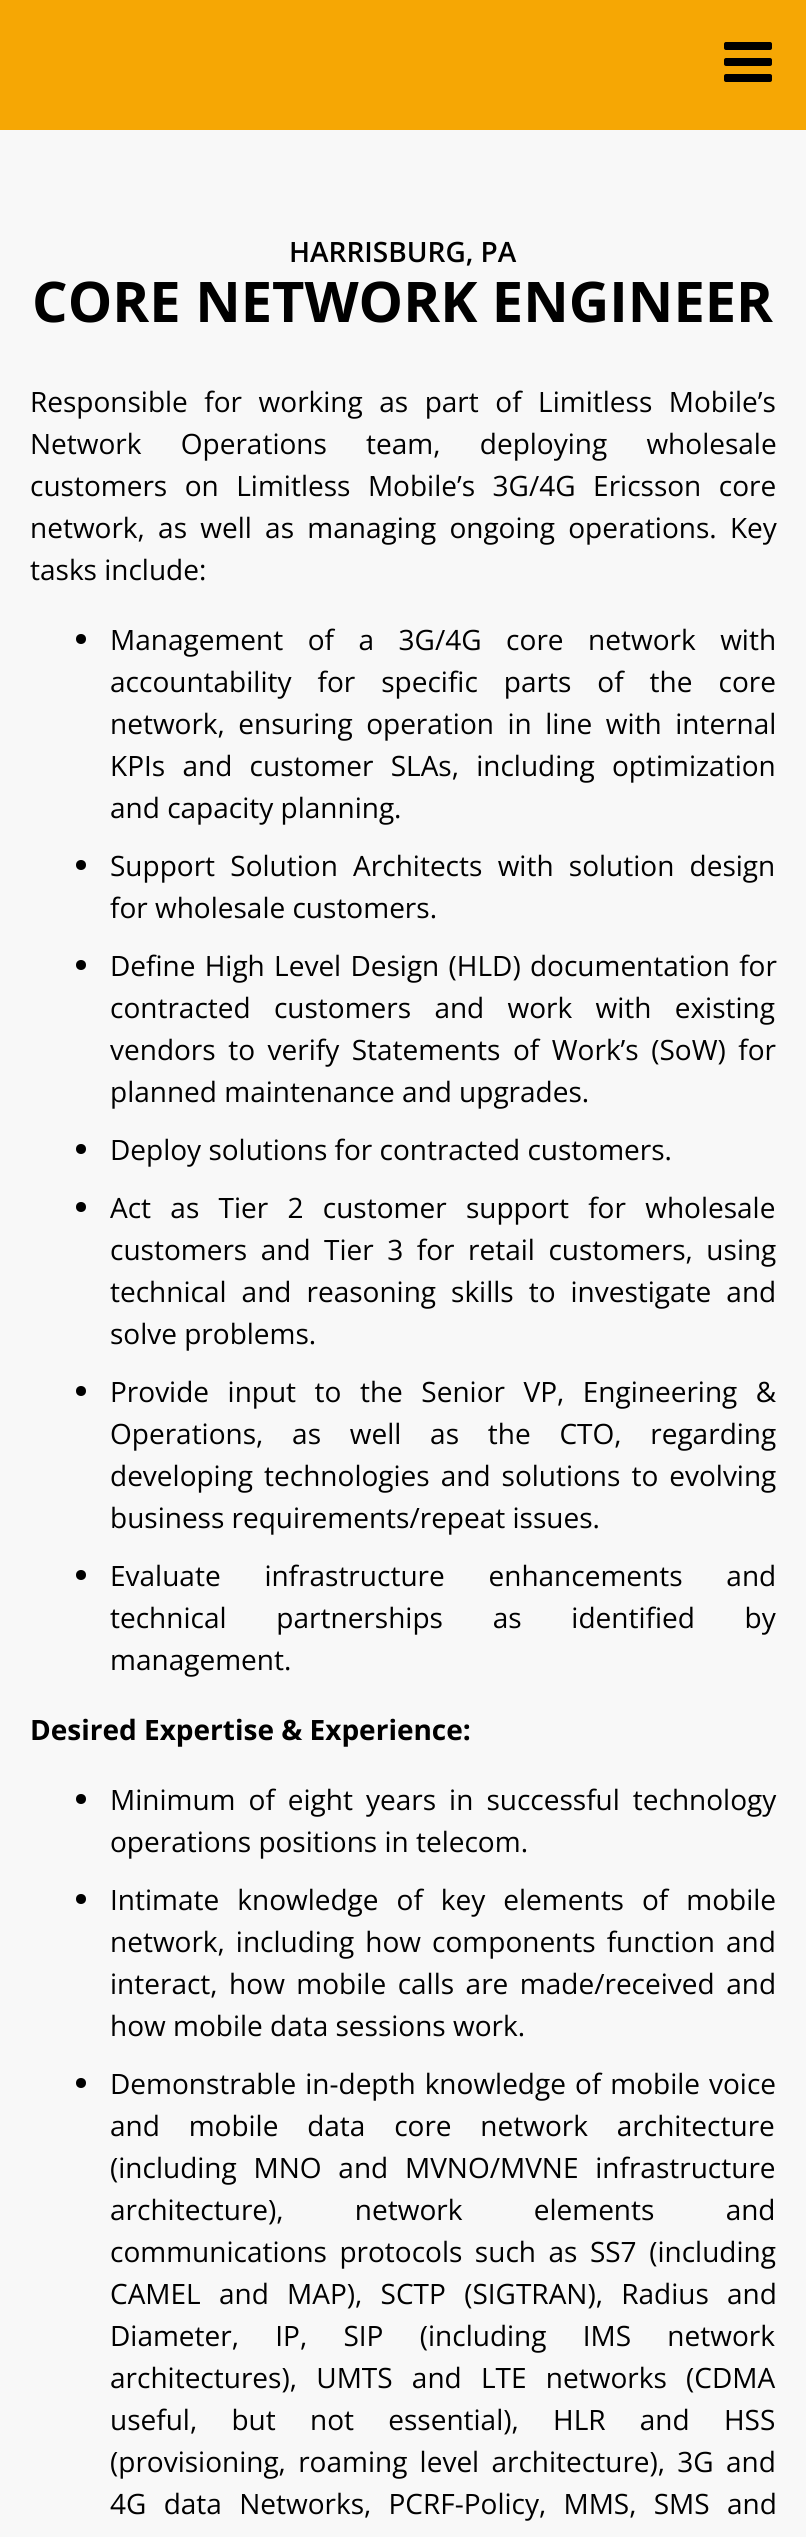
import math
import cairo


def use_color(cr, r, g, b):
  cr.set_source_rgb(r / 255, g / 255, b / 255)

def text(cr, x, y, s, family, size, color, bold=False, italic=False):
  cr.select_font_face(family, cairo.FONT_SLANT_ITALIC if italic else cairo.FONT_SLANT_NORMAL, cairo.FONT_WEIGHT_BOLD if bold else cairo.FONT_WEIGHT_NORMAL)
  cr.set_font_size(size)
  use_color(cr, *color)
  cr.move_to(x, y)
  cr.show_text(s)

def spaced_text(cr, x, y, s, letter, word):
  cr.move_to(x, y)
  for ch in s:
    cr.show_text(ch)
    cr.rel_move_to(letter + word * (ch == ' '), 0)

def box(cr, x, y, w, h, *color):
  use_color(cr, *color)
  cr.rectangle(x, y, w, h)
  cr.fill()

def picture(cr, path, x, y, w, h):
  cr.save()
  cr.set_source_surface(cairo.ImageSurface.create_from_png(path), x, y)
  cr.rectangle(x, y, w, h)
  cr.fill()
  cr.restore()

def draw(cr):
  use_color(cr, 246, 167, 4)
  cr.paint()
  picture(cr, "img_01.png", 724, 42, 48, 40)
  box(cr, 0, 130, 806, 2407, 248, 248, 248)
  use_color(cr, 0, 0, 0)
  cr.arc(81, 639, 5, 0, 2 * math.pi)
  cr.fill()
  cr.arc(81, 865, 5, 0, 2 * math.pi)
  cr.fill()
  cr.arc(81, 965, 5, 0, 2 * math.pi)
  cr.fill()
  cr.arc(81, 1149, 5, 0, 2 * math.pi)
  cr.fill()
  cr.arc(81, 1207, 5, 0, 2 * math.pi)
  cr.fill()
  cr.arc(81, 1391, 5, 0, 2 * math.pi)
  cr.fill()
  cr.arc(81, 1575, 5, 0, 2 * math.pi)
  cr.fill()
  cr.arc(81, 1799, 5, 0, 2 * math.pi)
  cr.fill()
  cr.arc(81, 1899, 5, 0, 2 * math.pi)
  cr.fill()
  cr.arc(81, 2083, 5, 0, 2 * math.pi)
  cr.fill()
  text(cr, 289, 262, "HARRISBURG, PA", "Open Sans SemiBold", 28, (0, 0, 0))
  text(cr, 32, 322, "CORE NETWORK ENGINEER", "Open Sans", 56, (0, 0, 0), bold=True)
  cr.select_font_face("Open Sans")
  cr.set_font_size(28)
  spaced_text(cr, 30, 412, "Responsible for working as part of Limitless Mobile’s", 0, 9.25)
  spaced_text(cr, 30, 454, "Network Operations team, deploying wholesale", 0, 32)
  spaced_text(cr, 30, 496, "customers on Limitless Mobile’s 3G/4G Ericsson core", 0, 10.25)
  spaced_text(cr, 30, 538, "network, as well as managing ongoing operations. Key", 0, 6)
  text(cr, 30, 580, "tasks include:", "Open Sans", 28, (0, 0, 0))
  spaced_text(cr, 110, 650, "Management of a 3G/4G core network with", 0, 17.25)
  spaced_text(cr, 110, 692, "accountability for specific parts of the core", 0, 18.75)
  spaced_text(cr, 110, 734, "network, ensuring operation in line with internal", 0, 6.25)
  spaced_text(cr, 110, 776, "KPIs and customer SLAs, including optimization", 0, 10)
  text(cr, 110, 818, "and capacity planning.", "Open Sans", 28, (0, 0, 0))
  spaced_text(cr, 110, 876, "Support Solution Architects with solution design", 0, 8)
  text(cr, 110, 918, "for wholesale customers.", "Open Sans", 28, (0, 0, 0))
  spaced_text(cr, 110, 976, "Define High Level Design (HLD) documentation for", 0, 2)
  spaced_text(cr, 110, 1018, "contracted customers and work with existing", 0, 16)
  spaced_text(cr, 110, 1060, "vendors to verify Statements of Work’s (SoW) for", 0, 5.25)
  text(cr, 110, 1102, "planned maintenance and upgrades.", "Open Sans", 28, (0, 0, 0))
  text(cr, 110, 1160, "Deploy solutions for contracted customers.", "Open Sans", 28, (0, 0, 0))
  spaced_text(cr, 110, 1218, "Act as Tier 2 customer support for wholesale", 0, 12)
  spaced_text(cr, 110, 1260, "customers and Tier 3 for retail customers, using", 0, 6.25)
  spaced_text(cr, 110, 1302, "technical and reasoning skills to investigate and", 0, 7.75)
  text(cr, 110, 1344, "solve problems.", "Open Sans", 28, (0, 0, 0))
  spaced_text(cr, 110, 1402, "Provide input to the Senior VP, Engineering &", 0, 11.25)
  spaced_text(cr, 110, 1444, "Operations, as well as the CTO, regarding", 0, 21.5)
  spaced_text(cr, 110, 1486, "developing technologies and solutions to evolving", 0, 3.75)
  text(cr, 110, 1528, "business requirements/repeat issues.", "Open Sans", 28, (0, 0, 0))
  spaced_text(cr, 110, 1586, "Evaluate infrastructure enhancements and", 0, 36.5)
  spaced_text(cr, 110, 1628, "technical partnerships as identified by", 0, 42.5)
  text(cr, 110, 1670, "management.", "Open Sans", 28, (0, 0, 0))
  text(cr, 30, 1740, "Desired Expertise & Experience:", "Open Sans", 28, (0, 0, 0), bold=True)
  cr.select_font_face("Open Sans")
  spaced_text(cr, 110, 1810, "Minimum of eight years in successful technology", 0, 5.75)
  text(cr, 110, 1852, "operations positions in telecom.", "Open Sans", 28, (0, 0, 0))
  spaced_text(cr, 110, 1910, "Intimate knowledge of key elements of mobile", 0, 10.75)
  spaced_text(cr, 110, 1952, "network, including how components function and", 0, 3.75)
  spaced_text(cr, 110, 1994, "interact, how mobile calls are made/received and", 0, 4.25)
  text(cr, 110, 2036, "how mobile data sessions work.", "Open Sans", 28, (0, 0, 0))
  spaced_text(cr, 110, 2094, "Demonstrable in-depth knowledge of mobile voice", 0, 1.75)
  spaced_text(cr, 110, 2136, "and mobile data core network architecture", 0, 21.5)
  spaced_text(cr, 110, 2178, "(including MNO and MVNO/MVNE infrastructure", 0, 9.5)
  spaced_text(cr, 110, 2220, "architecture), network elements and", 0, 64)
  spaced_text(cr, 110, 2262, "communications protocols such as SS7 (including", 0, 5.25)
  spaced_text(cr, 110, 2304, "CAMEL and MAP), SCTP (SIGTRAN), Radius and", 0, 11)
  spaced_text(cr, 110, 2346, "Diameter, IP, SIP (including IMS network", 0, 29)
  spaced_text(cr, 110, 2388, "architectures), UMTS and LTE networks (CDMA", 0, 12)
  spaced_text(cr, 110, 2430, "useful, but not essential), HLR and HSS", 0, 27)
  spaced_text(cr, 110, 2472, "(provisioning, roaming level architecture), 3G and", 0, 5)
  spaced_text(cr, 110, 2514, "4G data Networks, PCRF-Policy, MMS, SMS and", 0, 10)


surface = cairo.ImageSurface(cairo.FORMAT_RGB24, 806, 2537)
cr = cairo.Context(surface)
options = cairo.FontOptions()
options.set_hint_metrics(cairo.HINT_METRICS_OFF)
options.set_hint_style(cairo.HINT_STYLE_NONE)
cr.set_font_options(options)
cr.set_miter_limit(4)
draw(cr)
surface.write_to_png("out.png")
